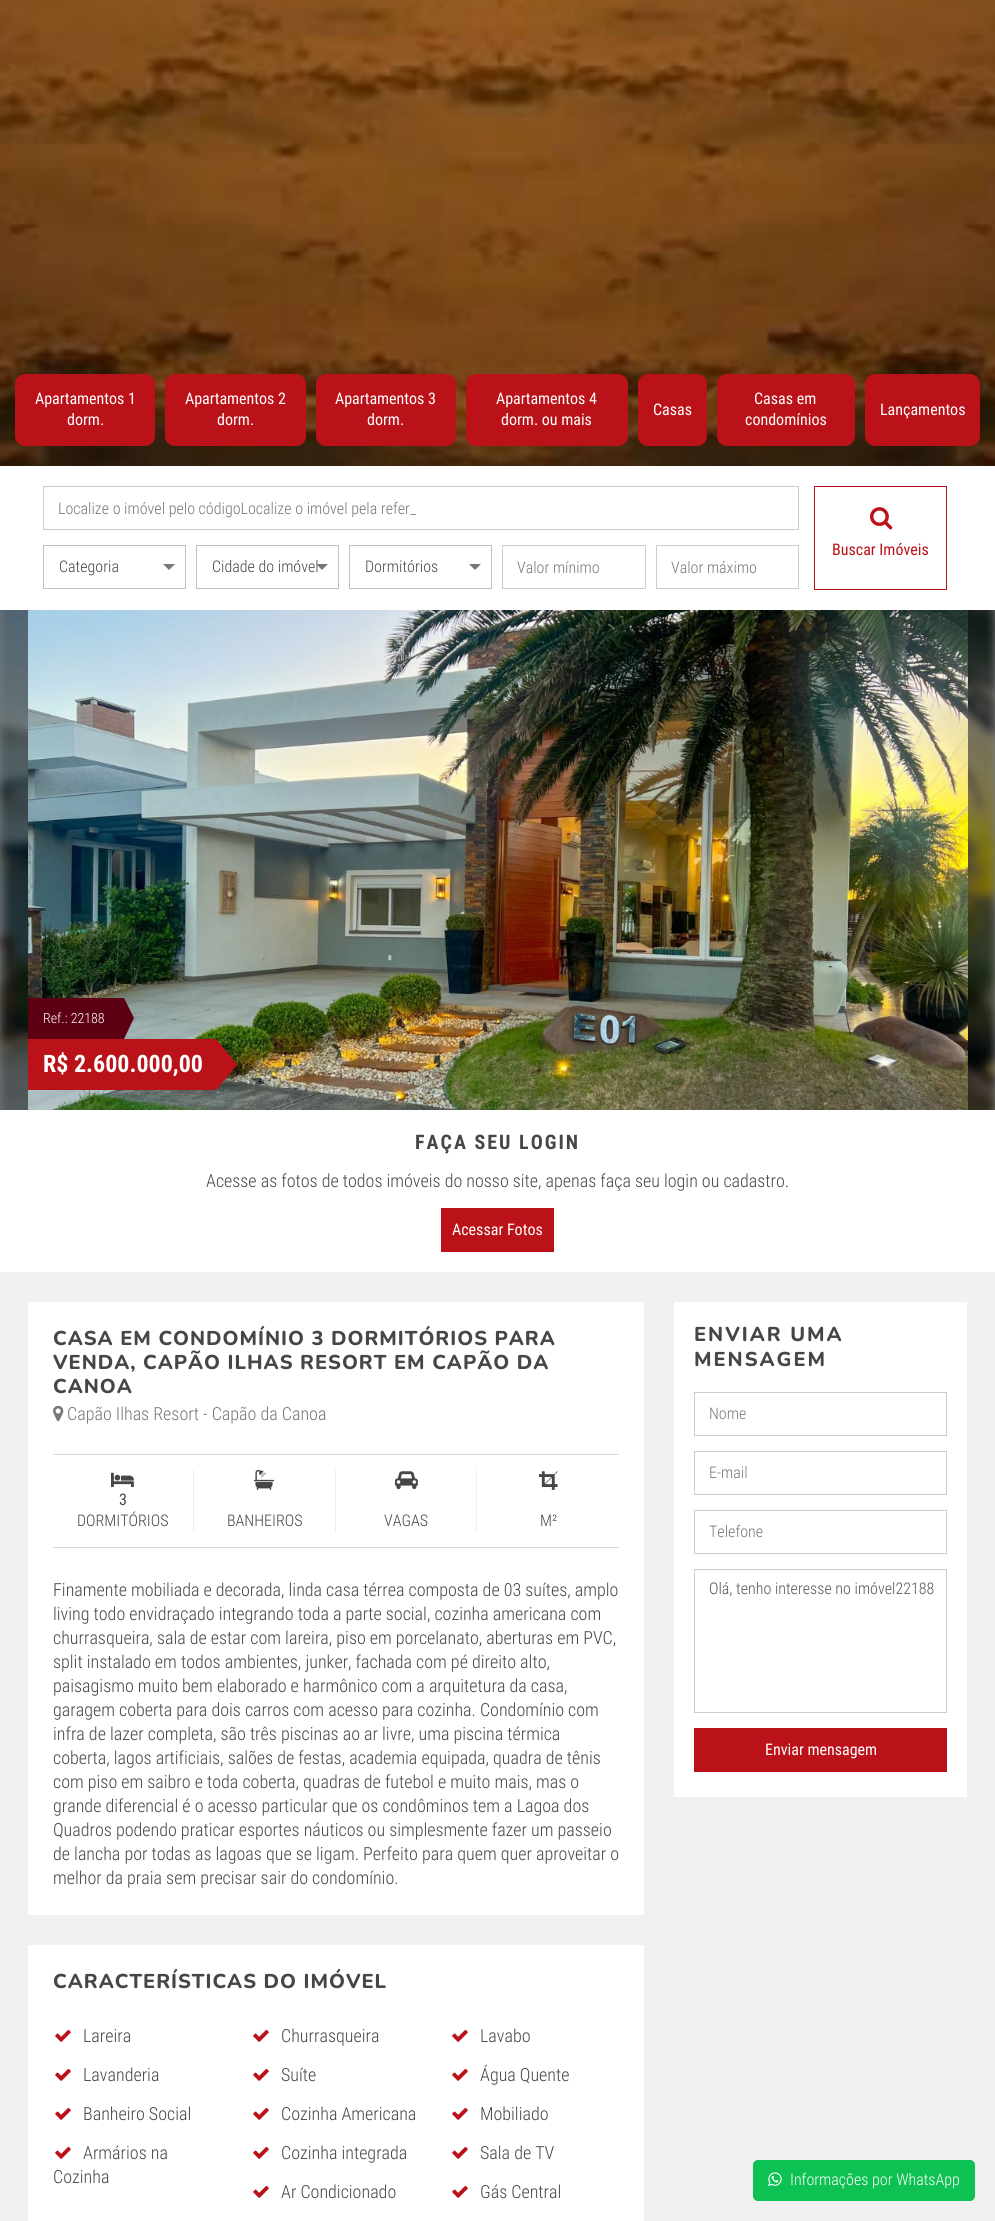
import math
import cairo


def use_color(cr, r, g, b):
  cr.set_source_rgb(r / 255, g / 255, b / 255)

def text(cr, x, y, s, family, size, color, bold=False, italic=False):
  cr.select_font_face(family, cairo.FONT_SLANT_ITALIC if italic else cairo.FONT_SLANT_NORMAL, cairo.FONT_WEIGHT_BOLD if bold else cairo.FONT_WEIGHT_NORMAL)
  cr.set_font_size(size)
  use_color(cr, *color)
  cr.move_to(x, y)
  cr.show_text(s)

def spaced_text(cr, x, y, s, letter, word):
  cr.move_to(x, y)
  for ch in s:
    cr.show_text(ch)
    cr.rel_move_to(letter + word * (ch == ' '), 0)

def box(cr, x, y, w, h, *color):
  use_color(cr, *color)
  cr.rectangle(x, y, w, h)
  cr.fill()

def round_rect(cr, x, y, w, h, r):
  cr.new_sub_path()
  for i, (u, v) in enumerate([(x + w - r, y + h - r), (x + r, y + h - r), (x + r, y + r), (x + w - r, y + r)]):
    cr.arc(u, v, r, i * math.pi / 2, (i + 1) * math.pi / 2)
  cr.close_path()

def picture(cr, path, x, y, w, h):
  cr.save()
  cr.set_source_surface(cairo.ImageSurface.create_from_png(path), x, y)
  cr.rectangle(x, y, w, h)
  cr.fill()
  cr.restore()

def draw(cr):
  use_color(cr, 241, 241, 241)
  cr.paint()
  box(cr, 0, 610, 995, 500, 121, 121, 121)
  picture(cr, "img_01.png", 0, 0, 995, 466)
  use_color(cr, 187, 18, 25)
  round_rect(cr, 15, 374, 140, 72, 10)
  cr.fill()
  round_rect(cr, 165, 374, 141, 72, 10)
  cr.fill()
  round_rect(cr, 316, 374, 140, 72, 10)
  cr.fill()
  round_rect(cr, 466, 374, 162, 72, 10)
  cr.fill()
  round_rect(cr, 638, 374, 69, 72, 10)
  cr.fill()
  round_rect(cr, 717, 374, 138, 72, 10)
  cr.fill()
  round_rect(cr, 865, 374, 115, 72, 10)
  cr.fill()
  box(cr, 0, 466, 995, 144, 255, 255, 255)
  cr.rectangle(43.5, 486.5, 755, 43)
  use_color(cr, 204, 204, 204)
  cr.set_line_width(1)
  cr.stroke()
  cr.rectangle(43.5, 545.5, 142, 43)
  use_color(cr, 192, 192, 192)
  cr.stroke()
  use_color(cr, 119, 119, 119)
  cr.new_path()
  cr.move_to(163, 564)
  cr.line_to(175, 564)
  cr.line_to(169, 570)
  cr.close_path()
  cr.fill()
  cr.rectangle(196.5, 545.5, 142, 43)
  use_color(cr, 192, 192, 192)
  cr.stroke()
  cr.rectangle(349.5, 545.5, 142, 43)
  cr.stroke()
  use_color(cr, 119, 119, 119)
  cr.new_path()
  cr.move_to(469, 564)
  cr.line_to(481, 564)
  cr.line_to(475, 570)
  cr.close_path()
  cr.fill()
  cr.rectangle(502.5, 545.5, 143, 43)
  use_color(cr, 204, 204, 204)
  cr.stroke()
  cr.rectangle(656.5, 545.5, 142, 43)
  cr.stroke()
  cr.rectangle(814.5, 486.5, 132, 103)
  use_color(cr, 187, 18, 25)
  cr.stroke()
  picture(cr, "img_02.png", 870, 507, 23, 23)
  picture(cr, "img_03.png", 0, 610, 995, 500)
  picture(cr, "img_04.png", 28, 610, 940, 500)
  use_color(cr, 94, 0, 19)
  cr.new_path()
  cr.move_to(124, 1039)
  cr.line_to(28, 1039)
  cr.line_to(28, 998)
  cr.line_to(124, 998)
  cr.line_to(134, 1018)
  cr.close_path()
  cr.fill()
  use_color(cr, 187, 18, 25)
  cr.new_path()
  cr.move_to(28, 1090)
  cr.line_to(216, 1090)
  cr.line_to(237, 1065)
  cr.line_to(237, 1064)
  cr.line_to(216, 1039)
  cr.line_to(28, 1039)
  cr.close_path()
  cr.fill()
  box(cr, 0, 1110, 995, 162, 255, 255, 255)
  box(cr, 441, 1208, 113, 44, 187, 18, 25)
  box(cr, 28, 1302, 616, 613, 255, 255, 255)
  picture(cr, "img_05.png", 53, 1405, 11, 17)
  box(cr, 53, 1454, 566, 1, 216, 216, 216)
  box(cr, 53, 1547, 566, 1, 216, 216, 216)
  box(cr, 193, 1470, 1, 62, 237, 237, 237)
  picture(cr, "img_06.png", 111, 1472, 23, 15)
  box(cr, 335, 1470, 1, 62, 237, 237, 237)
  picture(cr, "img_07.png", 254, 1469, 20, 21)
  box(cr, 476, 1470, 1, 62, 237, 237, 237)
  picture(cr, "img_08.png", 395, 1471, 23, 19)
  picture(cr, "img_09.png", 539, 1471, 19, 19)
  box(cr, 28, 1945, 616, 276, 255, 255, 255)
  picture(cr, "img_10.png", 55, 2029, 16, 13)
  picture(cr, "img_10.png", 253, 2029, 16, 13)
  picture(cr, "img_10.png", 452, 2029, 16, 13)
  picture(cr, "img_10.png", 55, 2068, 16, 13)
  picture(cr, "img_10.png", 253, 2068, 16, 13)
  picture(cr, "img_10.png", 452, 2068, 16, 13)
  picture(cr, "img_10.png", 55, 2107, 16, 13)
  picture(cr, "img_10.png", 253, 2107, 16, 13)
  picture(cr, "img_10.png", 452, 2107, 16, 13)
  picture(cr, "img_10.png", 55, 2146, 16, 13)
  picture(cr, "img_10.png", 253, 2146, 16, 13)
  picture(cr, "img_10.png", 452, 2146, 16, 13)
  picture(cr, "img_10.png", 253, 2185, 16, 13)
  picture(cr, "img_10.png", 452, 2185, 16, 13)
  box(cr, 674, 1302, 293, 495, 255, 255, 255)
  cr.rectangle(694.5, 1392.5, 252, 43)
  use_color(cr, 204, 204, 204)
  cr.stroke()
  cr.rectangle(694.5, 1451.5, 252, 43)
  cr.stroke()
  cr.rectangle(694.5, 1510.5, 252, 43)
  cr.stroke()
  cr.rectangle(694.5, 1569.5, 252, 143)
  cr.stroke()
  box(cr, 694, 1728, 253, 44, 187, 18, 25)
  use_color(cr, 13, 193, 82)
  round_rect(cr, 753, 2160, 222, 41, 5)
  cr.fill()
  picture(cr, "img_11.png", 768, 2172, 14, 15)
  text(cr, 35, 404, "Apartamentos 1", "Roboto Condensed", 16, (255, 255, 255))
  text(cr, 67, 425, "dorm.", "Roboto Condensed", 16, (255, 255, 255))
  text(cr, 185, 404, "Apartamentos 2", "Roboto Condensed", 16, (255, 255, 255))
  text(cr, 217, 425, "dorm.", "Roboto Condensed", 16, (255, 255, 255))
  text(cr, 335, 404, "Apartamentos 3", "Roboto Condensed", 16, (255, 255, 255))
  text(cr, 367, 425, "dorm.", "Roboto Condensed", 16, (255, 255, 255))
  text(cr, 496, 404, "Apartamentos 4", "Roboto Condensed", 16, (255, 255, 255))
  text(cr, 501, 425, "dorm. ou mais", "Roboto Condensed", 16, (255, 255, 255))
  text(cr, 653, 415, "Casas", "Roboto Condensed", 16, (255, 255, 255))
  text(cr, 754, 404, "Casas em", "Roboto Condensed", 16, (255, 255, 255))
  text(cr, 745, 425, "condomínios", "Roboto Condensed", 16, (255, 255, 255))
  text(cr, 880, 415, "Lançamentos", "Roboto Condensed", 16, (255, 255, 255))
  text(cr, 58, 514, "Localize o imóvel pelo códigoLocalize o imóvel pela refer_", "Roboto Condensed Light", 16, (119, 119, 119))
  text(cr, 59, 572, "Categoria", "Roboto Condensed Light", 16, (70, 70, 70))
  text(cr, 212, 572, "Cidade do imóvel", "Roboto Condensed Light", 16, (70, 70, 70))
  use_color(cr, 119, 119, 119)
  cr.new_path()
  cr.move_to(316, 564)
  cr.line_to(328, 564)
  cr.line_to(322, 570)
  cr.close_path()
  cr.fill()
  text(cr, 365, 572, "Dormitórios", "Roboto Condensed Light", 16, (70, 70, 70))
  text(cr, 517, 573, "Valor mínimo", "Roboto Condensed Light", 16, (119, 119, 119))
  text(cr, 671, 573, "Valor máximo", "Roboto Condensed Light", 16, (119, 119, 119))
  text(cr, 832, 555, "Buscar Imóveis", "Roboto Condensed", 16, (187, 18, 25))
  text(cr, 43, 1023, "Ref.: 22188", "Roboto Condensed Light", 14, (255, 255, 255))
  text(cr, 43, 1072, "R$ 2.600.000,00", "Roboto Condensed", 24, (255, 255, 255), bold=True)
  cr.set_font_size(20)
  use_color(cr, 70, 70, 70)
  spaced_text(cr, 415, 1149, "FAÇA SEU LOGIN", 2, 0)
  text(cr, 206, 1187, "Acesse as fotos de todos imóveis do nosso site, apenas faça seu login ou cadastro.", "Roboto Condensed Light", 18, (70, 70, 70))
  text(cr, 452, 1235, "Acessar Fotos", "Roboto Condensed", 16, (255, 255, 255))
  cr.select_font_face("Nunito ExtraBold")
  cr.set_font_size(20)
  use_color(cr, 70, 70, 70)
  spaced_text(cr, 53, 1345, "CASA EM CONDOMÍNIO 3 DORMITÓRIOS PARA", 1, 0)
  spaced_text(cr, 53, 1369, "VENDA, CAPÃO ILHAS RESORT EM CAPÃO DA", 1, 0)
  spaced_text(cr, 53, 1393, "CANOA", 1, 0)
  text(cr, 67, 1420, "Capão Ilhas Resort - Capão da Canoa", "Roboto Condensed Light", 18, (119, 119, 119))
  text(cr, 119, 1505, "3", "Roboto Condensed", 16, (70, 70, 70))
  text(cr, 77, 1526, "DORMITÓRIOS", "Roboto Condensed Light", 16, (70, 70, 70))
  text(cr, 227, 1526, "BANHEIROS", "Roboto Condensed Light", 16, (70, 70, 70))
  text(cr, 384, 1526, "VAGAS", "Roboto Condensed Light", 16, (70, 70, 70))
  text(cr, 540, 1526, "M²", "Roboto Condensed Light", 16, (70, 70, 70))
  text(cr, 53, 1596, "Finamente mobiliada e decorada, linda casa térrea composta de 03 suítes, amplo", "Roboto Condensed Light", 18, (70, 70, 70))
  text(cr, 53, 1620, "living todo envidraçado integrando toda a parte social, cozinha americana com", "Roboto Condensed Light", 18, (70, 70, 70))
  text(cr, 53, 1644, "churrasqueira, sala de estar com lareira, piso em porcelanato, aberturas em PVC,", "Roboto Condensed Light", 18, (70, 70, 70))
  text(cr, 53, 1668, "split instalado em todos ambientes, junker, fachada com pé direito alto,", "Roboto Condensed Light", 18, (70, 70, 70))
  text(cr, 53, 1692, "paisagismo muito bem elaborado e harmônico com a arquitetura da casa,", "Roboto Condensed Light", 18, (70, 70, 70))
  text(cr, 53, 1716, "garagem coberta para dois carros com acesso para cozinha. Condomínio com", "Roboto Condensed Light", 18, (70, 70, 70))
  text(cr, 53, 1740, "infra de lazer completa, são três piscinas ao ar livre, uma piscina térmica", "Roboto Condensed Light", 18, (70, 70, 70))
  text(cr, 53, 1764, "coberta, lagos artificiais, salões de festas, academia equipada, quadra de tênis", "Roboto Condensed Light", 18, (70, 70, 70))
  text(cr, 53, 1788, "com piso em saibro e toda coberta, quadras de futebol e muito mais, mas o", "Roboto Condensed Light", 18, (70, 70, 70))
  text(cr, 53, 1812, "grande diferencial é o acesso particular que os condôminos tem a Lagoa dos", "Roboto Condensed Light", 18, (70, 70, 70))
  text(cr, 53, 1836, "Quadros podendo praticar esportes náuticos ou simplesmente fazer um passeio", "Roboto Condensed Light", 18, (70, 70, 70))
  text(cr, 53, 1860, "de lancha por todas as lagoas que se ligam. Perfeito para quem quer aproveitar o", "Roboto Condensed Light", 18, (70, 70, 70))
  text(cr, 53, 1884, "melhor da praia sem precisar sair do condomínio.", "Roboto Condensed Light", 18, (70, 70, 70))
  cr.select_font_face("Nunito ExtraBold")
  cr.set_font_size(20)
  spaced_text(cr, 53, 1988, "CARACTERÍSTICAS DO IMÓVEL", 1, 0)
  text(cr, 83, 2042, "Lareira", "Roboto Condensed Light", 18, (70, 70, 70))
  text(cr, 281, 2042, "Churrasqueira", "Roboto Condensed Light", 18, (70, 70, 70))
  text(cr, 480, 2042, "Lavabo", "Roboto Condensed Light", 18, (70, 70, 70))
  text(cr, 83, 2081, "Lavanderia", "Roboto Condensed Light", 18, (70, 70, 70))
  text(cr, 281, 2081, "Suíte", "Roboto Condensed Light", 18, (70, 70, 70))
  text(cr, 480, 2081, "Água Quente", "Roboto Condensed Light", 18, (70, 70, 70))
  text(cr, 83, 2120, "Banheiro Social", "Roboto Condensed Light", 18, (70, 70, 70))
  text(cr, 281, 2120, "Cozinha Americana", "Roboto Condensed Light", 18, (70, 70, 70))
  text(cr, 480, 2120, "Mobiliado", "Roboto Condensed Light", 18, (70, 70, 70))
  text(cr, 83, 2159, "Armários na", "Roboto Condensed Light", 18, (70, 70, 70))
  text(cr, 53, 2183, "Cozinha", "Roboto Condensed Light", 18, (70, 70, 70))
  text(cr, 281, 2159, "Cozinha integrada", "Roboto Condensed Light", 18, (70, 70, 70))
  text(cr, 480, 2159, "Sala de TV", "Roboto Condensed Light", 18, (70, 70, 70))
  text(cr, 281, 2198, "Ar Condicionado", "Roboto Condensed Light", 18, (70, 70, 70))
  text(cr, 480, 2198, "Gás Central", "Roboto Condensed Light", 18, (70, 70, 70))
  cr.select_font_face("Nunito ExtraBold")
  cr.set_font_size(20)
  spaced_text(cr, 694, 1341, "ENVIAR UMA", 2, 0)
  spaced_text(cr, 694, 1366, "MENSAGEM", 2, 0)
  text(cr, 709, 1419, "Nome", "Roboto Condensed Light", 16, (119, 119, 119))
  text(cr, 709, 1478, "E-mail", "Roboto Condensed Light", 16, (119, 119, 119))
  text(cr, 709, 1537, "Telefone", "Roboto Condensed Light", 16, (119, 119, 119))
  text(cr, 709, 1594, "Olá, tenho interesse no imóvel22188", "Roboto Condensed Light", 16, (85, 85, 85))
  text(cr, 765, 1755, "Enviar mensagem", "Roboto Condensed", 16, (255, 255, 255))
  text(cr, 790, 2185, "Informações por WhatsApp", "Roboto Condensed Light", 16, (255, 255, 255))


surface = cairo.ImageSurface(cairo.FORMAT_RGB24, 995, 2221)
cr = cairo.Context(surface)
options = cairo.FontOptions()
options.set_hint_metrics(cairo.HINT_METRICS_OFF)
options.set_hint_style(cairo.HINT_STYLE_NONE)
cr.set_font_options(options)
cr.set_miter_limit(4)
draw(cr)
surface.write_to_png("out.png")
